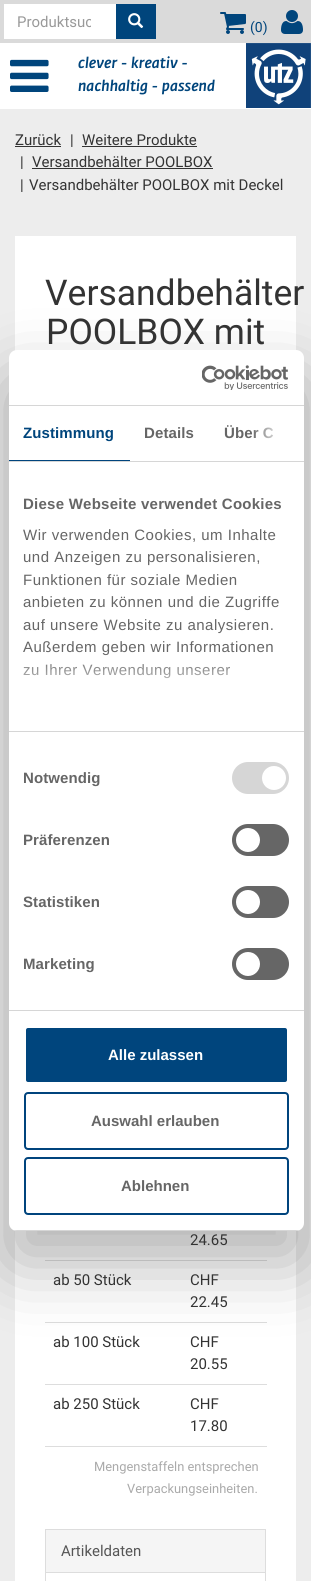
import math
import cairo


def use_color(cr, r, g, b):
  cr.set_source_rgb(r / 255, g / 255, b / 255)

def text(cr, x, y, s, family, size, color, bold=False, italic=False):
  cr.select_font_face(family, cairo.FONT_SLANT_ITALIC if italic else cairo.FONT_SLANT_NORMAL, cairo.FONT_WEIGHT_BOLD if bold else cairo.FONT_WEIGHT_NORMAL)
  cr.set_font_size(size)
  use_color(cr, *color)
  cr.move_to(x, y)
  cr.show_text(s)

def spaced_text(cr, x, y, s, letter, word):
  cr.move_to(x, y)
  for ch in s:
    cr.show_text(ch)
    cr.rel_move_to(letter + word * (ch == ' '), 0)

def box(cr, x, y, w, h, *color):
  use_color(cr, *color)
  cr.rectangle(x, y, w, h)
  cr.fill()

def round_rect(cr, x, y, w, h, r):
  cr.new_sub_path()
  for i, (u, v) in enumerate([(x + w - r, y + h - r), (x + r, y + h - r), (x + r, y + r), (x + w - r, y + r)]):
    cr.arc(u, v, r, i * math.pi / 2, (i + 1) * math.pi / 2)
  cr.close_path()

def shadow(cr, x, y, w, h, r, blur, alpha):
  cr.push_group_with_content(cairo.CONTENT_ALPHA)
  cr.set_operator(cairo.OPERATOR_SOURCE)
  for i in range(15, -16, -2):
    e = blur * i / 6
    if min(w, h) + 2 * e > 0:
      cr.set_source_rgba(0, 0, 0, alpha * math.erfc((i - 1) / 8.5) / 2)
      round_rect(cr, x - e, y - e, w + 2 * e, h + 2 * e, max(0, min(r + e + blur * .6, min(w, h) / 2 + e)))
      cr.fill()
  cr.mask(cr.pop_group())

def picture(cr, path, x, y, w, h):
  cr.save()
  cr.set_source_surface(cairo.ImageSurface.create_from_png(path), x, y)
  cr.rectangle(x, y, w, h)
  cr.fill()
  cr.restore()

def draw(cr):
  use_color(cr, 237, 237, 237)
  cr.paint()
  box(cr, 0, 43, 311, 66, 255, 255, 255)
  box(cr, 0, 0, 311, 43, 218, 218, 218)
  box(cr, 4, 4, 112, 35, 255, 255, 255)
  box(cr, 116, 4, 40, 35, 0, 69, 124)
  picture(cr, "img_01.png", 128, 13, 16, 15)
  picture(cr, "img_02.png", 220, 12, 26, 22)
  picture(cr, "img_03.png", 281, 10, 22, 24)
  picture(cr, "img_04.png", 10, 59, 39, 33)
  picture(cr, "img_05.png", 246, 43, 65, 65)
  box(cr, 15, 146, 46, 1, 51, 51, 51)
  box(cr, 82, 146, 115, 1, 51, 51, 51)
  box(cr, 32, 168, 181, 1, 51, 51, 51)
  box(cr, 15, 236, 281, 1345, 255, 255, 255)
  box(cr, 45, 1260, 222, 1, 221, 221, 221)
  box(cr, 45, 1322, 222, 1, 221, 221, 221)
  box(cr, 45, 1384, 222, 1, 221, 221, 221)
  box(cr, 45, 1446, 222, 1, 221, 221, 221)
  use_color(cr, 245, 245, 245)
  cr.rectangle(45.5, 1529.5, 220, 43)
  cr.fill_preserve()
  use_color(cr, 221, 221, 221)
  cr.set_line_width(1)
  cr.stroke()
  box(cr, 265, 1573, 1, 8, 221, 221, 221)
  box(cr, 45, 1573, 1, 8, 221, 221, 221)
  use_color(cr, 0, 0, 0)
  shadow(cr, 9, 382, 295, 881, 8, 34, 0.3)
  use_color(cr, 255, 255, 255)
  round_rect(cr, 9, 350, 295, 881, 8)
  cr.fill()
  box(cr, 9, 405, 295, 1, 214, 214, 214)
  picture(cr, "img_06.png", 202, 365, 86, 25)
  box(cr, 9, 461, 295, 1, 214, 214, 214)
  box(cr, 9, 460, 121, 1, 0, 68, 125)
  box(cr, 9, 731, 295, 1, 214, 214, 214)
  box(cr, 9, 1010, 295, 1, 214, 214, 214)
  round_rect(cr, 232, 762, 57, 32, 16)
  cr.fill()
  use_color(cr, 255, 255, 255)
  cr.arc(274, 778, 12, 0, 2 * math.pi)
  cr.fill()
  use_color(cr, 102, 102, 102)
  round_rect(cr, 232, 824, 57, 32, 16)
  cr.fill()
  use_color(cr, 255, 255, 255)
  cr.arc(248, 840, 12, 0, 2 * math.pi)
  cr.fill()
  use_color(cr, 102, 102, 102)
  round_rect(cr, 232, 886, 57, 32, 16)
  cr.fill()
  use_color(cr, 255, 255, 255)
  cr.arc(248, 902, 12, 0, 2 * math.pi)
  cr.fill()
  use_color(cr, 102, 102, 102)
  round_rect(cr, 232, 948, 57, 32, 16)
  cr.fill()
  use_color(cr, 255, 255, 255)
  cr.arc(248, 964, 12, 0, 2 * math.pi)
  cr.fill()
  cr.save()
  round_rect(cr, 9, 350, 295, 881, 8)
  cr.clip()
  box(cr, 9, 1230, 295, 1, 214, 214, 214)
  cr.restore()
  use_color(cr, 0, 69, 125)
  round_rect(cr, 25, 1027, 263, 56, 3)
  cr.fill_preserve()
  use_color(cr, 255, 255, 255)
  cr.set_line_width(2)
  cr.stroke()
  round_rect(cr, 25, 1093, 263, 56, 3)
  use_color(cr, 0, 68, 125)
  cr.stroke()
  round_rect(cr, 25, 1158, 263, 56, 3)
  cr.stroke()
  cr.save()
  cr.rectangle(17, 13, 74, 18)
  cr.clip()
  text(cr, 17, 27, "Produktsuc", "Roboto", 15, (153, 153, 153))
  cr.restore()
  text(cr, 250, 32, "(0)", "Roboto", 14, (0, 69, 124))
  text(cr, 78, 68, "clever - kreativ -", "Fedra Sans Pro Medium", 15, (0, 69, 124), italic=True)
  text(cr, 78, 91, "nachhaltig - passend", "Fedra Sans Pro Medium", 15, (0, 69, 124), italic=True)
  text(cr, 15, 145, "Zurück", "Roboto", 15, (51, 51, 51))
  text(cr, 70, 145, "|", "Roboto", 15, (51, 51, 51))
  text(cr, 82, 145, "Weitere Produkte", "Roboto", 15, (51, 51, 51))
  text(cr, 20, 167, "|", "Roboto", 15, (51, 51, 51))
  text(cr, 32, 167, "Versandbehälter POOLBOX", "Roboto", 15, (51, 51, 51))
  text(cr, 20, 190, "|", "Roboto", 15, (51, 51, 51))
  text(cr, 29, 190, "Versandbehälter POOLBOX mit Deckel", "Roboto", 15, (51, 51, 51))
  text(cr, 45, 305, "Versandbehälter", "Roboto", 35.5, (51, 51, 51))
  text(cr, 46, 344, "POOLBOX mit", "Roboto", 35.5, (51, 51, 51))
  text(cr, 190, 1245, "24.65", "Roboto", 15, (51, 51, 51))
  text(cr, 53, 1285, "ab 50 Stück", "Roboto", 15, (51, 51, 51))
  text(cr, 190, 1285, "CHF", "Roboto", 15, (51, 51, 51))
  text(cr, 190, 1307, "22.45", "Roboto", 15, (51, 51, 51))
  text(cr, 53, 1347, "ab 100 Stück", "Roboto", 15, (51, 51, 51))
  text(cr, 190, 1347, "CHF", "Roboto", 15, (51, 51, 51))
  text(cr, 190, 1369, "20.55", "Roboto", 15, (51, 51, 51))
  text(cr, 53, 1409, "ab 250 Stück", "Roboto", 15, (51, 51, 51))
  text(cr, 190, 1409, "CHF", "Roboto", 15, (51, 51, 51))
  text(cr, 190, 1431, "17.80", "Roboto", 15, (51, 51, 51))
  text(cr, 94, 1471, "Mengenstaffeln entsprechen", "Roboto", 12.9, (170, 170, 170))
  text(cr, 127, 1493, "Verpackungseinheiten.", "Roboto", 12.9, (170, 170, 170))
  text(cr, 61, 1556, "Artikeldaten", "Roboto", 15, (85, 85, 85))
  cr.select_font_face("Liberation Sans", cairo.FONT_SLANT_NORMAL, cairo.FONT_WEIGHT_BOLD)
  use_color(cr, 0, 69, 124)
  spaced_text(cr, 23, 438, "Zustimmung", 0.1, 0)
  use_color(cr, 102, 102, 102)
  spaced_text(cr, 144, 438, "Details", 0.1, 0)
  spaced_text(cr, 224, 438, "Über C", 0.1, 0)
  gradient = cairo.LinearGradient(304, 434, 251, 434)
  gradient.add_color_stop_rgba(0, 1, 1, 1, 1)
  gradient.add_color_stop_rgba(0.5, 1, 1, 1, 0.8)
  gradient.add_color_stop_rgba(1, 1, 1, 1, 0)
  cr.set_source(gradient)
  cr.rectangle(253, 427, 21, 12)
  cr.fill()
  use_color(cr, 102, 102, 102)
  spaced_text(cr, 23, 509, "Diese Webseite verwendet Cookies", 0.25, 0)
  cr.select_font_face("Liberation Sans")
  spaced_text(cr, 23, 540, "Wir verwenden Cookies, um Inhalte", 0.5, 0)
  spaced_text(cr, 23, 562, "und Anzeigen zu personalisieren,", 0.5, 0)
  spaced_text(cr, 23, 585, "Funktionen für soziale Medien", 0.5, 0)
  spaced_text(cr, 23, 607, "anbieten zu können und die Zugriffe", 0.5, 0)
  spaced_text(cr, 23, 630, "auf unsere Website zu analysieren.", 0.5, 0)
  spaced_text(cr, 23, 652, "Außerdem geben wir Informationen", 0.5, 0)
  spaced_text(cr, 23, 675, "zu Ihrer Verwendung unserer", 0.5, 0)
  gradient = cairo.LinearGradient(150, 731, 150, 656)
  gradient.add_color_stop_rgba(0, 1, 1, 1, 1)
  gradient.add_color_stop_rgba(0.5, 1, 1, 1, 0.8)
  gradient.add_color_stop_rgba(1, 1, 1, 1, 0)
  cr.set_source(gradient)
  cr.rectangle(23, 664, 207, 15)
  cr.fill()
  cr.select_font_face("Liberation Sans", cairo.FONT_SLANT_NORMAL, cairo.FONT_WEIGHT_BOLD)
  use_color(cr, 102, 102, 102)
  spaced_text(cr, 23, 783, "Notwendig", 0.1, 0)
  spaced_text(cr, 23, 845, "Präferenzen", 0.1, 0)
  spaced_text(cr, 23, 907, "Statistiken", 0.1, 0)
  spaced_text(cr, 23, 969, "Marketing", 0.1, 0)
  text(cr, 108, 1060, "Alle zulassen", "Liberation Sans", 15, (255, 255, 255), bold=True)
  text(cr, 91, 1126, "Auswahl erlauben", "Liberation Sans", 15, (102, 102, 102), bold=True)
  text(cr, 121, 1191, "Ablehnen", "Liberation Sans", 15, (102, 102, 102), bold=True)


surface = cairo.ImageSurface(cairo.FORMAT_RGB24, 311, 1581)
cr = cairo.Context(surface)
options = cairo.FontOptions()
options.set_hint_metrics(cairo.HINT_METRICS_OFF)
options.set_hint_style(cairo.HINT_STYLE_NONE)
cr.set_font_options(options)
cr.set_miter_limit(4)
draw(cr)
surface.write_to_png("out.png")
